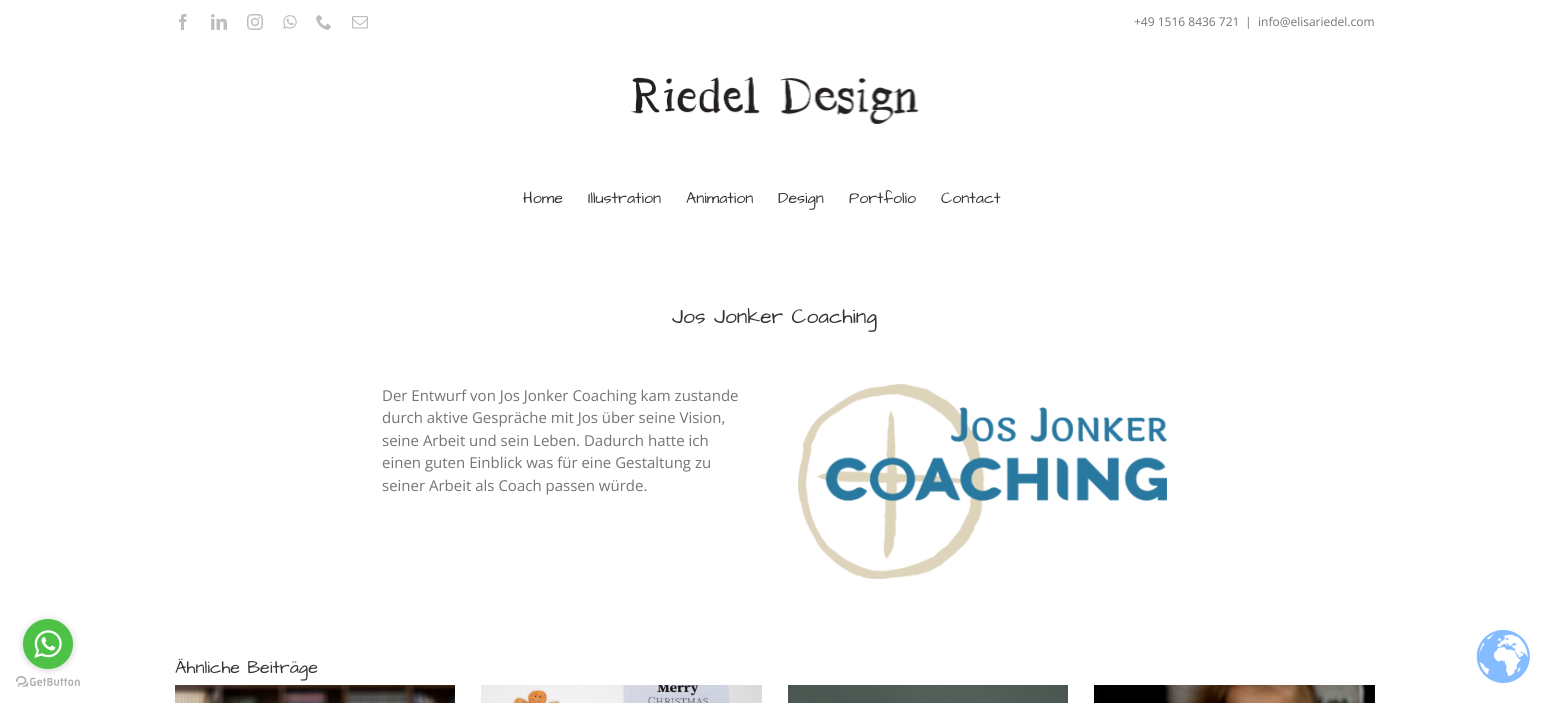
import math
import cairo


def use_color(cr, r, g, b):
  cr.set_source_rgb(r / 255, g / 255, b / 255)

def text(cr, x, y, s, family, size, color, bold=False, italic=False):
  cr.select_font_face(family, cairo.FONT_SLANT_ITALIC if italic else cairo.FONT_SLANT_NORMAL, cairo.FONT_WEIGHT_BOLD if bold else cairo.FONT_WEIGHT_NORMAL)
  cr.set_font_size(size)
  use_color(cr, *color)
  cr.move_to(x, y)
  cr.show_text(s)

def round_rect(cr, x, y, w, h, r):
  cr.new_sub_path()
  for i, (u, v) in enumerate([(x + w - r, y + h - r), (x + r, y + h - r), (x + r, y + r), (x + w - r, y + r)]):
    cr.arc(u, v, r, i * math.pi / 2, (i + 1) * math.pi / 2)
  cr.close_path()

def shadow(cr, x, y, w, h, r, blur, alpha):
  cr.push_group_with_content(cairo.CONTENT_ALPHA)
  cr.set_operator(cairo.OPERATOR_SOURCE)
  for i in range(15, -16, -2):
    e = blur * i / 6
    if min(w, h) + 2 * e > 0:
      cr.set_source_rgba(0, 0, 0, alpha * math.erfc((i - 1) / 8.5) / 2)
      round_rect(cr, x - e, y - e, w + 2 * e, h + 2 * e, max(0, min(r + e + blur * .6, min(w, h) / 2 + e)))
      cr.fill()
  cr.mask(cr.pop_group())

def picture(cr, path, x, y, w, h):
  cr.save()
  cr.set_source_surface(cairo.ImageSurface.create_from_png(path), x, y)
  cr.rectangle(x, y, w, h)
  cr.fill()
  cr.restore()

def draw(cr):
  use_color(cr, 255, 255, 255)
  cr.paint()
  picture(cr, "img_02.png", 16, 676, 64, 11)
  use_color(cr, 136, 136, 136)
  shadow(cr, 23, 620, 50, 50, 25, 3.5, 0.4)
  use_color(cr, 77, 194, 71)
  cr.arc(48, 644, 25, 0, 2 * math.pi)
  cr.fill()
  picture(cr, "img_01.png", 34, 630, 28, 28)
  picture(cr, "img_03.png", 179, 14, 8, 16)
  picture(cr, "img_04.png", 211, 14, 16, 16)
  picture(cr, "img_05.png", 247, 14, 16, 16)
  picture(cr, "img_06.png", 283, 15, 14, 14)
  picture(cr, "img_07.png", 316, 15, 15, 15)
  picture(cr, "img_08.png", 352, 16, 16, 13)
  picture(cr, "img_09.png", 631, 77, 288, 47)
  picture(cr, "img_10.png", 798, 384, 369, 195)
  picture(cr, "img_11.png", 175, 685, 280, 18)
  picture(cr, "img_12.png", 481, 685, 281, 18)
  picture(cr, "img_13.png", 788, 685, 280, 18)
  picture(cr, "img_14.png", 1094, 685, 281, 18)
  picture(cr, "img_15.png", 1476, 629, 54, 55)
  text(cr, 1134, 26, "+49 1516 8436 721", "Open Sans", 12, (116, 116, 116))
  text(cr, 1245, 26, "|", "Open Sans", 12, (116, 116, 116))
  text(cr, 1258, 26, "info@elisariedel.com", "Open Sans", 12, (116, 116, 116))
  text(cr, 523, 203, "Home", "Architects Daughter", 16, (51, 51, 51))
  text(cr, 588, 203, "Illustration", "Architects Daughter", 16, (51, 51, 51))
  text(cr, 686, 203, "Animation", "Architects Daughter", 16, (51, 51, 51))
  text(cr, 778, 203, "Design", "Architects Daughter", 16, (51, 51, 51))
  text(cr, 849, 203, "Portfolio", "Architects Daughter", 16, (51, 51, 51))
  text(cr, 941, 203, "Contact", "Architects Daughter", 16, (51, 51, 51))
  text(cr, 672, 323, "Jos Jonker Coaching", "Architects Daughter", 21, (51, 51, 51))
  text(cr, 382, 401, "Der Entwurf von Jos Jonker Coaching kam zustande", "Open Sans", 15, (116, 116, 116))
  text(cr, 382, 423, "durch aktive Gespräche mit Jos über seine Vision,", "Open Sans", 15, (116, 116, 116))
  text(cr, 382, 446, "seine Arbeit und sein Leben. Dadurch hatte ich", "Open Sans", 15, (116, 116, 116))
  text(cr, 382, 468, "einen guten Einblick was für eine Gestaltung zu", "Open Sans", 15, (116, 116, 116))
  text(cr, 382, 491, "seiner Arbeit als Coach passen würde.", "Open Sans", 15, (116, 116, 116))
  text(cr, 175, 673, "Ähnliche Beiträge", "Architects Daughter", 18, (51, 51, 51))


surface = cairo.ImageSurface(cairo.FORMAT_RGB24, 1549, 703)
cr = cairo.Context(surface)
options = cairo.FontOptions()
options.set_hint_metrics(cairo.HINT_METRICS_OFF)
options.set_hint_style(cairo.HINT_STYLE_NONE)
cr.set_font_options(options)
cr.set_miter_limit(4)
draw(cr)
surface.write_to_png("out.png")
